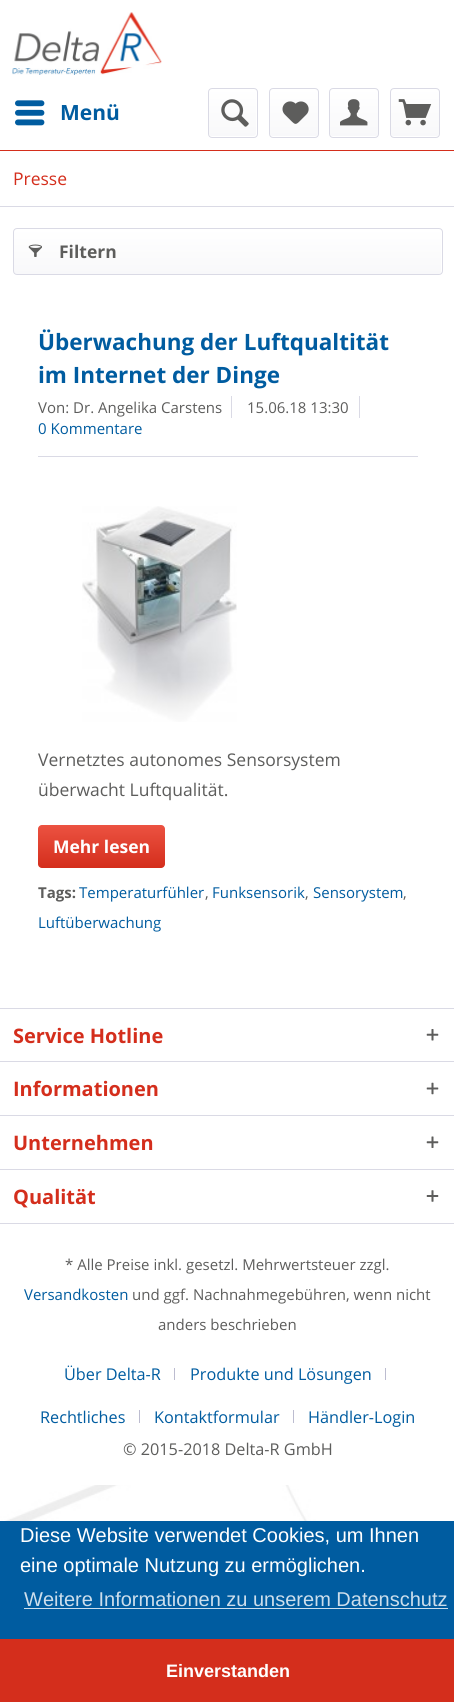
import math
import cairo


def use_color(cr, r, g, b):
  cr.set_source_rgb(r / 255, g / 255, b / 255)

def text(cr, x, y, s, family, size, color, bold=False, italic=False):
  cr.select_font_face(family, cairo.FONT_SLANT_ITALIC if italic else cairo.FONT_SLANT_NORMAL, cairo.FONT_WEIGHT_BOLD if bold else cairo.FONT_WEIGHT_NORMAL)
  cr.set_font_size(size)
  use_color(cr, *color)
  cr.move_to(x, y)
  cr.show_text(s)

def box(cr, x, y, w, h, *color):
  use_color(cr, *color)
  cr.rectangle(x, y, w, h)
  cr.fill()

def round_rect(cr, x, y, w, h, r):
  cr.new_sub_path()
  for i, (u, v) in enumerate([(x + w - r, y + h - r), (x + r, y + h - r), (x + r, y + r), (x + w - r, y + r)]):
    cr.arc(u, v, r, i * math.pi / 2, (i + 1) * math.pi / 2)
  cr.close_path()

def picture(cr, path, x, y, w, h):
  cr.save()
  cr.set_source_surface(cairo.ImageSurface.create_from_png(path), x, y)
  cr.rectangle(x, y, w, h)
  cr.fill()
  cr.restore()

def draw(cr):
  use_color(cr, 255, 255, 255)
  cr.paint()
  picture(cr, "img_01.png", 0, 1485, 454, 36)
  box(cr, 0, 150, 454, 1, 212, 46, 28)
  picture(cr, "img_02.png", 12, 12, 150, 63)
  picture(cr, "img_03.png", 15, 100, 30, 26)
  gradient = cairo.LinearGradient(233, 89, 233, 136)
  gradient.add_color_stop_rgba(0, 1, 1, 1, 1)
  gradient.add_color_stop_rgba(1, 0.973, 0.973, 0.98, 1)
  cr.set_source(gradient)
  round_rect(cr, 209, 89, 47, 47, 2.5)
  cr.fill()
  round_rect(cr, 208.5, 88.5, 49, 49, 3.5)
  use_color(cr, 218, 218, 229)
  cr.set_line_width(1)
  cr.stroke()
  picture(cr, "img_04.png", 221, 99, 28, 28)
  gradient = cairo.LinearGradient(294, 89, 294, 136)
  gradient.add_color_stop_rgba(0, 1, 1, 1, 1)
  gradient.add_color_stop_rgba(1, 0.973, 0.973, 0.98, 1)
  cr.set_source(gradient)
  round_rect(cr, 270, 89, 48, 47, 2.5)
  cr.fill()
  round_rect(cr, 269.5, 88.5, 49, 49, 3.5)
  use_color(cr, 218, 218, 229)
  cr.stroke()
  picture(cr, "img_05.png", 282, 101, 27, 23)
  gradient = cairo.LinearGradient(354, 89, 354, 136)
  gradient.add_color_stop_rgba(0, 1, 1, 1, 1)
  gradient.add_color_stop_rgba(1, 0.973, 0.973, 0.98, 1)
  cr.set_source(gradient)
  round_rect(cr, 330, 89, 48, 47, 2.5)
  cr.fill()
  round_rect(cr, 329.5, 88.5, 49, 49, 3.5)
  use_color(cr, 218, 218, 229)
  cr.stroke()
  picture(cr, "img_06.png", 340, 99, 28, 27)
  gradient = cairo.LinearGradient(415, 89, 415, 136)
  gradient.add_color_stop_rgba(0, 1, 1, 1, 1)
  gradient.add_color_stop_rgba(1, 0.973, 0.973, 0.98, 1)
  cr.set_source(gradient)
  round_rect(cr, 391, 89, 48, 47, 2.5)
  cr.fill()
  round_rect(cr, 390.5, 88.5, 49, 49, 3.5)
  use_color(cr, 218, 218, 229)
  cr.stroke()
  picture(cr, "img_07.png", 398, 99, 34, 27)
  box(cr, 0, 206, 454, 1, 218, 218, 229)
  gradient = cairo.LinearGradient(228, 229, 228, 274)
  gradient.add_color_stop_rgba(0, 1, 1, 1, 1)
  gradient.add_color_stop_rgba(1, 0.973, 0.973, 0.98, 1)
  cr.set_source(gradient)
  round_rect(cr, 14, 229, 427, 45, 2.5)
  cr.fill()
  round_rect(cr, 13.5, 228.5, 429, 46, 3.5)
  use_color(cr, 218, 218, 229)
  cr.stroke()
  picture(cr, "img_08.png", 28, 244, 14, 13)
  box(cr, 38, 456, 380, 1, 218, 218, 229)
  box(cr, 231, 396, 1, 22, 218, 218, 229)
  box(cr, 359, 396, 1, 22, 218, 218, 229)
  picture(cr, "img_09.png", 82, 506, 155, 216)
  gradient = cairo.LinearGradient(101, 825, 101, 868)
  gradient.add_color_stop_rgba(0, 0.925, 0.322, 0.255, 1)
  gradient.add_color_stop_rgba(1, 0.831, 0.18, 0.11, 1)
  cr.set_source(gradient)
  round_rect(cr, 38, 825, 127, 43, 4)
  cr.fill()
  box(cr, 0, 1008, 454, 1, 218, 218, 229)
  picture(cr, "img_10.png", 426, 1029, 13, 12)
  box(cr, 0, 1061, 454, 1, 218, 218, 229)
  picture(cr, "img_11.png", 426, 1082, 13, 13)
  box(cr, 0, 1115, 454, 1, 218, 218, 229)
  picture(cr, "img_12.png", 426, 1136, 13, 12)
  box(cr, 0, 1169, 454, 1, 218, 218, 229)
  box(cr, 0, 1223, 454, 1, 218, 218, 229)
  picture(cr, "img_13.png", 426, 1190, 13, 12)
  box(cr, 174, 1368, 1, 12, 188, 188, 208)
  box(cr, 385, 1368, 1, 12, 188, 188, 208)
  box(cr, 139, 1410, 1, 13, 188, 188, 208)
  box(cr, 293, 1410, 1, 13, 188, 188, 208)
  box(cr, 0, 1521, 454, 118, 0, 92, 160)
  box(cr, 24, 1608, 424, 1, 204, 222, 236)
  box(cr, 0, 1639, 454, 63, 212, 46, 28)
  text(cr, 60, 120, "Menü", "Open Sans", 21, (0, 92, 160), bold=True)
  text(cr, 13, 185, "Presse", "Open Sans", 17.5, (212, 46, 28))
  text(cr, 59, 258, "Filtern", "Open Sans", 17.5, (93, 93, 92), bold=True)
  text(cr, 38, 350, "Überwachung der Luftqualtität", "Open Sans", 22.5, (0, 92, 160), bold=True)
  text(cr, 38, 383, "im Internet der Dinge", "Open Sans", 22.5, (0, 92, 160), bold=True)
  text(cr, 38, 413, "Von: Dr. Angelika Carstens", "Open Sans", 15, (93, 93, 92))
  text(cr, 247, 413, "15.06.18 13:30", "Open Sans", 15, (93, 93, 92))
  text(cr, 38, 434, "0 Kommentare", "Open Sans", 15, (0, 92, 160))
  text(cr, 38, 766, "Vernetztes autonomes Sensorsystem", "Open Sans", 17.5, (93, 93, 92))
  text(cr, 38, 796, "überwacht Luftqualität.", "Open Sans", 17.5, (93, 93, 92))
  text(cr, 53, 853, "Mehr lesen", "Open Sans", 17.5, (255, 255, 255), bold=True)
  text(cr, 38, 898, "Tags:", "Open Sans", 15, (93, 93, 92), bold=True)
  text(cr, 79, 898, "Temperaturfühler", "Open Sans", 15, (0, 92, 160))
  text(cr, 205, 898, ",", "Open Sans", 15, (93, 93, 92))
  text(cr, 212, 898, "Funksensorik", "Open Sans", 15, (0, 92, 160))
  text(cr, 305, 898, ",", "Open Sans", 15, (93, 93, 92))
  text(cr, 313, 898, "Sensorystem", "Open Sans", 15, (0, 92, 160))
  text(cr, 403, 898, ",", "Open Sans", 15, (93, 93, 92))
  text(cr, 38, 928, "Luftüberwachung", "Open Sans", 15, (0, 92, 160))
  text(cr, 13, 1043, "Service Hotline", "Open Sans", 20, (212, 46, 28), bold=True)
  text(cr, 13, 1096, "Informationen", "Open Sans", 20, (212, 46, 28), bold=True)
  text(cr, 13, 1150, "Unternehmen", "Open Sans", 20, (212, 46, 28), bold=True)
  text(cr, 13, 1204, "Qualität", "Open Sans", 20, (212, 46, 28), bold=True)
  text(cr, 65, 1270, "* Alle Preise inkl. gesetzl. Mehrwertsteuer zzgl.", "Open Sans", 15, (93, 93, 92))
  text(cr, 24, 1300, "Versandkosten", "Open Sans", 15, (0, 92, 160))
  text(cr, 132, 1300, "und ggf. Nachnahmegebühren, wenn nicht", "Open Sans", 15, (93, 93, 92))
  text(cr, 158, 1330, "anders beschrieben", "Open Sans", 15, (93, 93, 92))
  text(cr, 64, 1380, "Über Delta-R", "Open Sans", 16.25, (0, 92, 160))
  text(cr, 190, 1380, "Produkte und Lösungen", "Open Sans", 16.25, (0, 92, 160))
  text(cr, 40, 1423, "Rechtliches", "Open Sans", 16.25, (0, 92, 160))
  text(cr, 154, 1423, "Kontaktformular", "Open Sans", 16.25, (0, 92, 160))
  text(cr, 308, 1423, "Händler-Login", "Open Sans", 16.25, (0, 92, 160))
  text(cr, 123, 1455, "© 2015-2018 Delta-R GmbH", "Open Sans", 16.25, (93, 93, 92))
  text(cr, 20, 1542, "Diese Website verwendet Cookies, um Ihnen", "Liberation Sans", 20, (255, 255, 255))
  text(cr, 20, 1572, "eine optimale Nutzung zu ermöglichen.", "Liberation Sans", 20, (255, 255, 255))
  text(cr, 24, 1606, "Weitere Informationen zu unserem Datenschutz", "Liberation Sans", 20, (204, 222, 236))
  text(cr, 166, 1677, "Einverstanden", "Liberation Sans", 18, (255, 255, 255), bold=True)


surface = cairo.ImageSurface(cairo.FORMAT_RGB24, 454, 1702)
cr = cairo.Context(surface)
options = cairo.FontOptions()
options.set_hint_metrics(cairo.HINT_METRICS_OFF)
options.set_hint_style(cairo.HINT_STYLE_NONE)
cr.set_font_options(options)
cr.set_miter_limit(4)
draw(cr)
surface.write_to_png("out.png")
